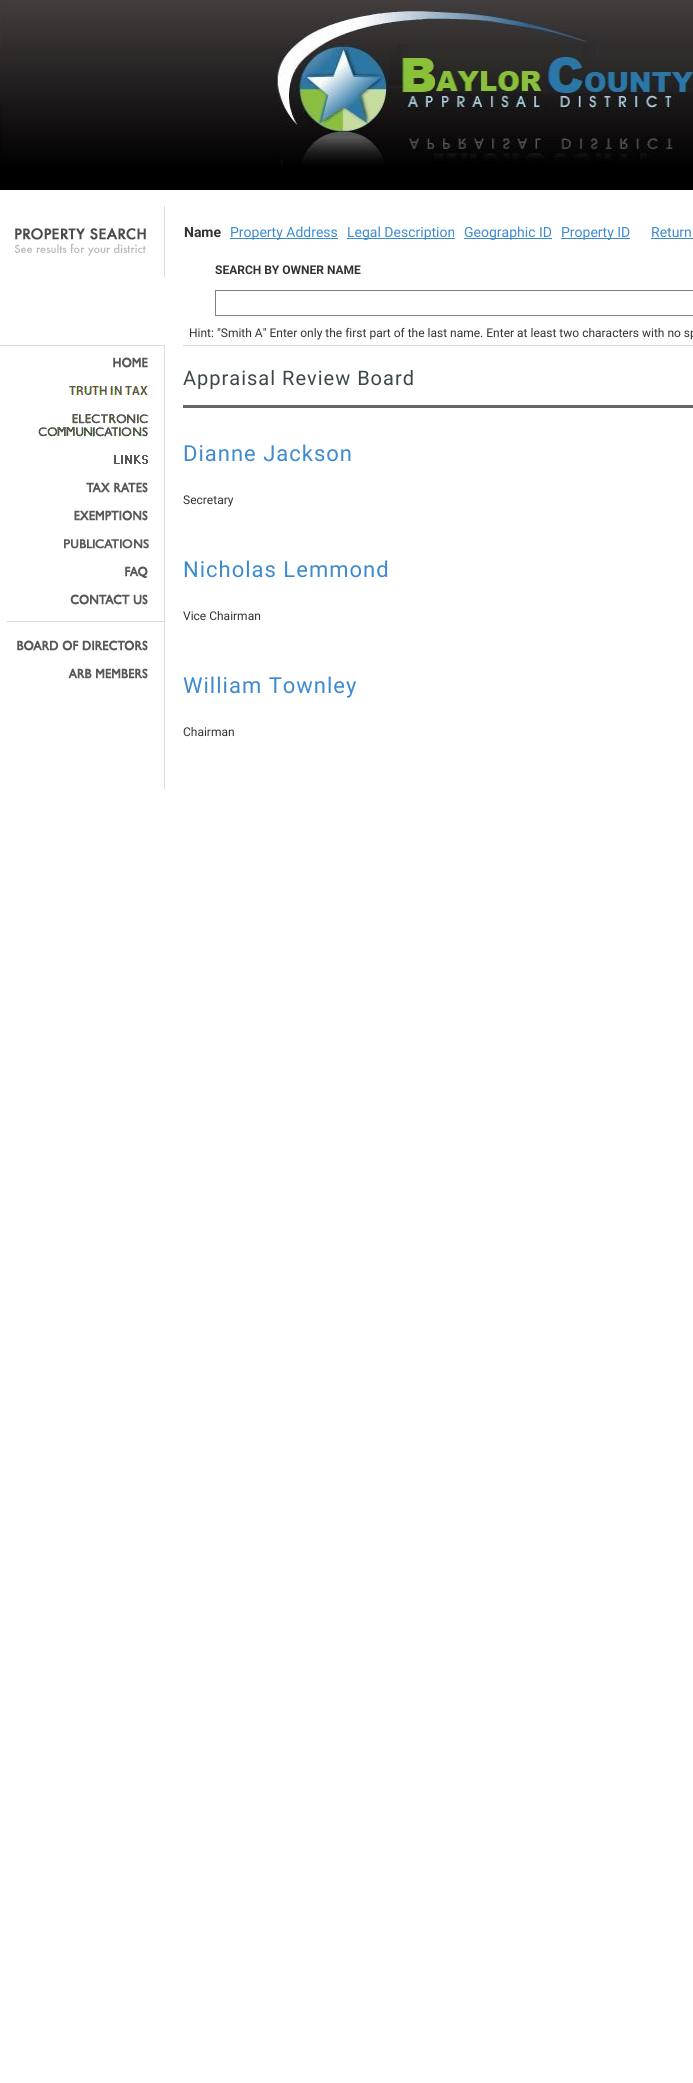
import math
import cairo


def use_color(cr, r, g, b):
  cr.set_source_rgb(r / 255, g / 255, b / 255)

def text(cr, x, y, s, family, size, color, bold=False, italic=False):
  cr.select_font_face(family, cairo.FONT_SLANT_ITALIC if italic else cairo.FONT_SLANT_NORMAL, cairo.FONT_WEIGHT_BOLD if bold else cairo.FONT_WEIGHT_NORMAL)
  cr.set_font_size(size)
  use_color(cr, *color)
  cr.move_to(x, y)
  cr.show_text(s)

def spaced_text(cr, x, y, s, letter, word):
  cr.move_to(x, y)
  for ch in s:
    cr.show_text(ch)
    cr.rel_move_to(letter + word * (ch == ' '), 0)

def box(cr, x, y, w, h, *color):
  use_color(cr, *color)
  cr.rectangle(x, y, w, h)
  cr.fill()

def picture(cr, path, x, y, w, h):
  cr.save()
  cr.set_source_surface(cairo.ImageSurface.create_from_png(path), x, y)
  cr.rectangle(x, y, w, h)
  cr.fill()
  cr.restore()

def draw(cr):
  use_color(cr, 255, 255, 255)
  cr.paint()
  box(cr, 0, 166, 693, 24, 0, 0, 0)
  picture(cr, "img_01.png", 0, 0, 693, 166)
  picture(cr, "img_02.png", 14, 206, 151, 72)
  box(cr, 230, 238, 108, 1, 62, 138, 207)
  box(cr, 347, 238, 108, 1, 62, 138, 207)
  box(cr, 464, 238, 88, 1, 62, 138, 207)
  box(cr, 561, 238, 69, 1, 62, 138, 207)
  box(cr, 651, 238, 42, 1, 62, 138, 207)
  cr.rectangle(215.5, 290.5, 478, 25)
  use_color(cr, 128, 128, 128)
  cr.set_line_width(1)
  cr.stroke()
  box(cr, 0, 345, 164, 1, 220, 220, 220)
  picture(cr, "img_03.png", 113, 357, 35, 11)
  picture(cr, "img_04.png", 69, 386, 79, 9)
  picture(cr, "img_05.png", 38, 414, 110, 23)
  picture(cr, "img_06.png", 114, 455, 34, 9)
  picture(cr, "img_07.png", 86, 482, 62, 11)
  picture(cr, "img_08.png", 74, 510, 74, 11)
  picture(cr, "img_09.png", 64, 539, 85, 10)
  picture(cr, "img_10.png", 125, 566, 23, 12)
  picture(cr, "img_11.png", 70, 594, 78, 11)
  box(cr, 7, 621, 157, 1, 220, 220, 220)
  picture(cr, "img_12.png", 17, 640, 131, 11)
  picture(cr, "img_13.png", 68, 668, 80, 11)
  box(cr, 164, 345, 1, 445, 220, 220, 220)
  box(cr, 183, 345, 510, 1, 220, 220, 220)
  box(cr, 183, 405, 510, 3, 102, 102, 102)
  text(cr, 184, 237, "Name", "Roboto", 14, (51, 51, 51), bold=True)
  text(cr, 230, 237, "Property Address", "Roboto", 14, (62, 138, 207))
  text(cr, 347, 237, "Legal Description", "Roboto", 14, (62, 138, 207))
  text(cr, 464, 237, "Geographic ID", "Roboto", 14, (62, 138, 207))
  text(cr, 561, 237, "Property ID", "Roboto", 14, (62, 138, 207))
  text(cr, 651, 237, "Return", "Roboto", 14, (62, 138, 207))
  text(cr, 215, 274, "SEARCH BY OWNER NAME", "Roboto", 12, (51, 51, 51), bold=True)
  text(cr, 189, 337, "Hint: \"Smith A\" Enter only the first part of the last name. Enter at least two characters with no sp", "Roboto", 12, (51, 51, 51))
  cr.set_font_size(20)
  use_color(cr, 64, 71, 75)
  spaced_text(cr, 183, 385, "Appraisal Review Board", 1, 0)
  cr.set_font_size(22)
  use_color(cr, 62, 138, 207)
  spaced_text(cr, 183, 461, "Dianne Jackson", 1, 0)
  text(cr, 183, 504, "Secretary", "Roboto", 12, (51, 51, 51))
  cr.set_font_size(22)
  use_color(cr, 62, 138, 207)
  spaced_text(cr, 183, 577, "Nicholas Lemmond", 1, 0)
  text(cr, 183, 620, "Vice Chairman", "Roboto", 12, (51, 51, 51))
  cr.set_font_size(22)
  use_color(cr, 62, 138, 207)
  spaced_text(cr, 183, 693, "William Townley", 1, 0)
  text(cr, 183, 736, "Chairman", "Roboto", 12, (51, 51, 51))


surface = cairo.ImageSurface(cairo.FORMAT_RGB24, 693, 2083)
cr = cairo.Context(surface)
options = cairo.FontOptions()
options.set_hint_metrics(cairo.HINT_METRICS_OFF)
options.set_hint_style(cairo.HINT_STYLE_NONE)
cr.set_font_options(options)
cr.set_miter_limit(4)
draw(cr)
surface.write_to_png("out.png")
